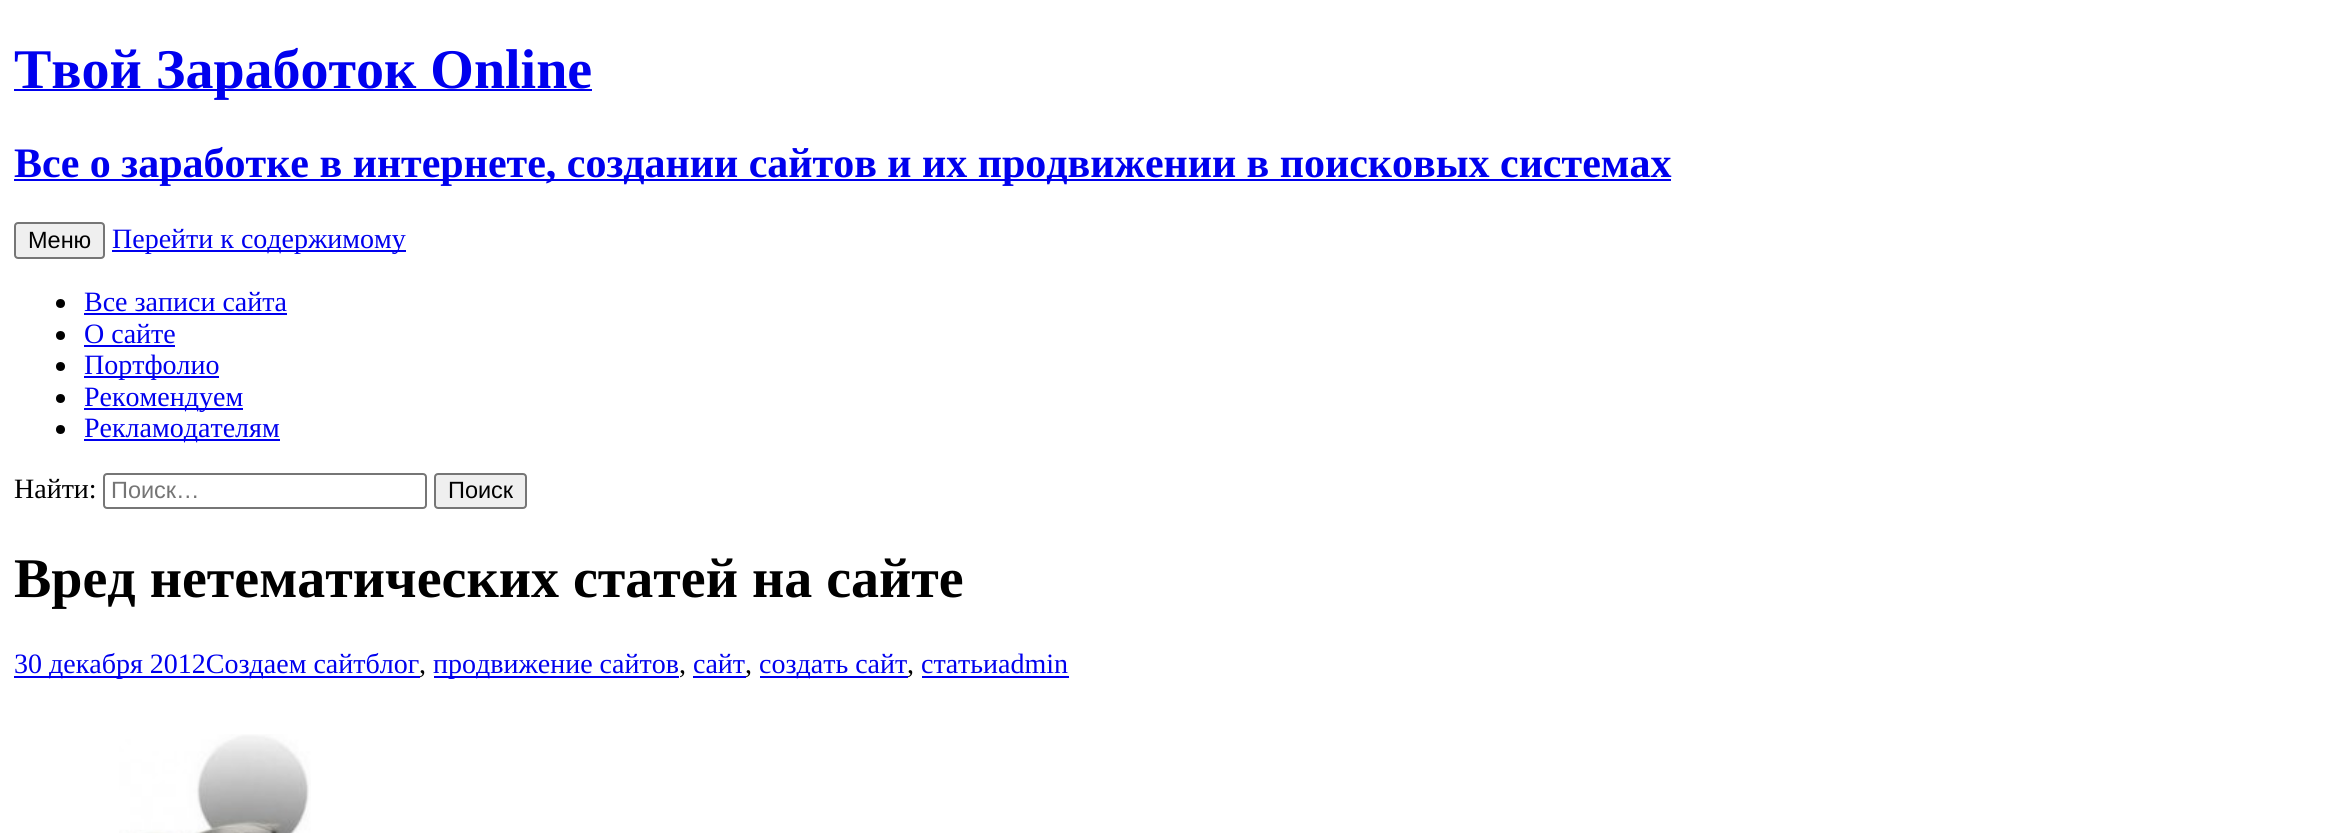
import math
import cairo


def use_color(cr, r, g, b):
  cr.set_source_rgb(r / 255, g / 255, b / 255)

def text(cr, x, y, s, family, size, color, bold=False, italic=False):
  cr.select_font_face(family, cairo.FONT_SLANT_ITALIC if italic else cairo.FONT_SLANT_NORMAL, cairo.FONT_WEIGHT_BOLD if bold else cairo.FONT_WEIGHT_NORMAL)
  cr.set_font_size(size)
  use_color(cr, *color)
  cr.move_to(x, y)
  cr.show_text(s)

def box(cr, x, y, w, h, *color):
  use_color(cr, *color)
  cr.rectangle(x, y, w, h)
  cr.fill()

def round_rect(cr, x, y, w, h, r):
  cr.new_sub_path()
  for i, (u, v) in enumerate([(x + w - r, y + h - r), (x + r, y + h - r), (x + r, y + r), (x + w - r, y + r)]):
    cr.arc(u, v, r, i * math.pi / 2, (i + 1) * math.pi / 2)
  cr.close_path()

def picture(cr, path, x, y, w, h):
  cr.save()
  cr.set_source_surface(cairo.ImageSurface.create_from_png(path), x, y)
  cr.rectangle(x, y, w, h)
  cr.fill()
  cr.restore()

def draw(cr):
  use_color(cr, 255, 255, 255)
  cr.paint()
  box(cr, 14, 89, 578, 2, 0, 0, 238)
  box(cr, 14, 179, 1657, 2, 0, 0, 238)
  use_color(cr, 239, 239, 239)
  round_rect(cr, 15, 223, 89, 35, 3)
  cr.fill_preserve()
  use_color(cr, 118, 118, 118)
  cr.stroke()
  box(cr, 112, 250, 294, 2, 0, 0, 238)
  use_color(cr, 0, 0, 0)
  cr.arc(60.5, 303.5, 4.5, 0, 2 * math.pi)
  cr.fill()
  box(cr, 84, 313, 203, 2, 0, 0, 238)
  use_color(cr, 0, 0, 0)
  cr.arc(60.5, 335.5, 4.5, 0, 2 * math.pi)
  cr.fill()
  box(cr, 84, 345, 91, 2, 0, 0, 238)
  use_color(cr, 0, 0, 0)
  cr.arc(60.5, 366.5, 4.5, 0, 2 * math.pi)
  cr.fill()
  box(cr, 84, 376, 135, 2, 0, 0, 238)
  use_color(cr, 0, 0, 0)
  cr.arc(60.5, 398.5, 4.5, 0, 2 * math.pi)
  cr.fill()
  box(cr, 84, 408, 159, 2, 0, 0, 238)
  use_color(cr, 0, 0, 0)
  cr.arc(60.5, 429.5, 4.5, 0, 2 * math.pi)
  cr.fill()
  box(cr, 84, 439, 196, 2, 0, 0, 238)
  round_rect(cr, 104, 474, 322, 34, 3)
  use_color(cr, 118, 118, 118)
  cr.stroke()
  use_color(cr, 239, 239, 239)
  round_rect(cr, 435, 474, 91, 34, 3)
  cr.fill_preserve()
  use_color(cr, 118, 118, 118)
  cr.stroke()
  box(cr, 14, 676, 406, 2, 0, 0, 238)
  box(cr, 434, 676, 245, 2, 0, 0, 238)
  box(cr, 693, 676, 53, 2, 0, 0, 238)
  box(cr, 760, 676, 148, 2, 0, 0, 238)
  box(cr, 922, 676, 147, 2, 0, 0, 238)
  picture(cr, "img_01.png", 119, 734, 192, 99)
  text(cr, 14, 88, "Твой Заработок Online", "Liberation Serif", 56, (0, 0, 238), bold=True)
  text(cr, 14, 177, "Все о заработке в интернете, создании сайтов и их продвижении в поисковых системах", "Liberation Serif", 42, (0, 0, 238), bold=True)
  text(cr, 28, 248, "Меню", "Liberation Sans", 23.5, (0, 0, 0))
  text(cr, 112, 248, "Перейти к содержимому", "Liberation Serif", 28, (0, 0, 238))
  text(cr, 84, 311, "Все записи сайта", "Liberation Serif", 28, (0, 0, 238))
  text(cr, 84, 343, "О сайте", "Liberation Serif", 28, (0, 0, 238))
  text(cr, 84, 374, "Портфолио", "Liberation Serif", 28, (0, 0, 238))
  text(cr, 84, 406, "Рекомендуем", "Liberation Serif", 28, (0, 0, 238))
  text(cr, 84, 437, "Рекламодателям", "Liberation Serif", 28, (0, 0, 238))
  text(cr, 14, 498, "Найти:", "Liberation Serif", 28, (0, 0, 0))
  text(cr, 111, 498, "Поиск…", "Liberation Sans", 23.5, (117, 117, 117))
  text(cr, 448, 498, "Поиск", "Liberation Sans", 23.5, (0, 0, 0))
  text(cr, 14, 597, "Вред нетематических статей на сайте", "Liberation Serif", 56, (0, 0, 0), bold=True)
  text(cr, 14, 673, "30 декабря 2012Создаем сайтблог", "Liberation Serif", 28, (0, 0, 238))
  text(cr, 419, 673, ",", "Liberation Serif", 28, (0, 0, 0))
  text(cr, 433, 673, "продвижение сайтов", "Liberation Serif", 28, (0, 0, 238))
  text(cr, 679, 673, ",", "Liberation Serif", 28, (0, 0, 0))
  text(cr, 693, 673, "сайт", "Liberation Serif", 28, (0, 0, 238))
  text(cr, 745, 673, ",", "Liberation Serif", 28, (0, 0, 0))
  text(cr, 759, 673, "создать сайт", "Liberation Serif", 28, (0, 0, 238))
  text(cr, 907, 673, ",", "Liberation Serif", 28, (0, 0, 0))
  text(cr, 921, 673, "статьиadmin", "Liberation Serif", 28, (0, 0, 238))


surface = cairo.ImageSurface(cairo.FORMAT_RGB24, 2340, 833)
cr = cairo.Context(surface)
options = cairo.FontOptions()
options.set_hint_metrics(cairo.HINT_METRICS_OFF)
options.set_hint_style(cairo.HINT_STYLE_NONE)
cr.set_font_options(options)
cr.set_miter_limit(4)
draw(cr)
surface.write_to_png("out.png")
